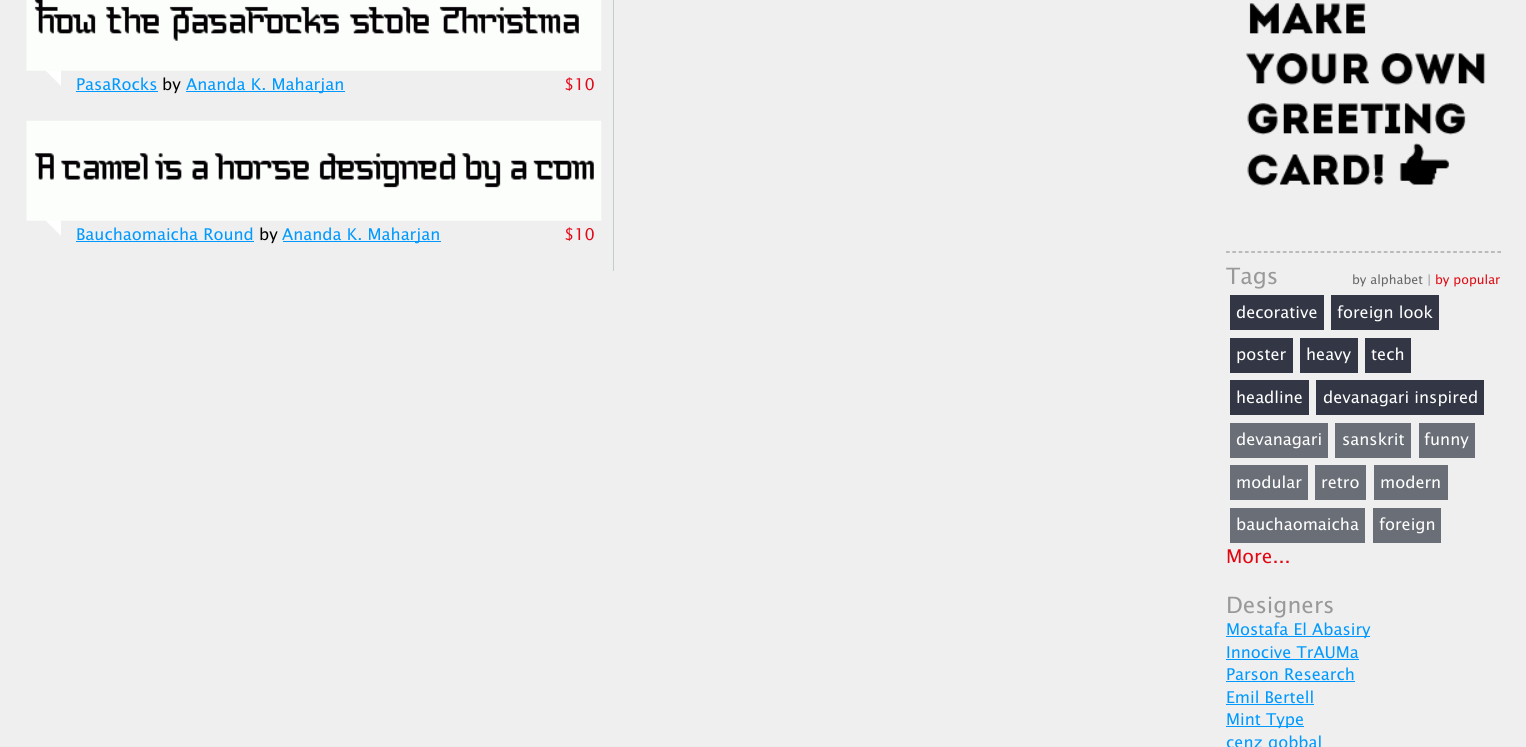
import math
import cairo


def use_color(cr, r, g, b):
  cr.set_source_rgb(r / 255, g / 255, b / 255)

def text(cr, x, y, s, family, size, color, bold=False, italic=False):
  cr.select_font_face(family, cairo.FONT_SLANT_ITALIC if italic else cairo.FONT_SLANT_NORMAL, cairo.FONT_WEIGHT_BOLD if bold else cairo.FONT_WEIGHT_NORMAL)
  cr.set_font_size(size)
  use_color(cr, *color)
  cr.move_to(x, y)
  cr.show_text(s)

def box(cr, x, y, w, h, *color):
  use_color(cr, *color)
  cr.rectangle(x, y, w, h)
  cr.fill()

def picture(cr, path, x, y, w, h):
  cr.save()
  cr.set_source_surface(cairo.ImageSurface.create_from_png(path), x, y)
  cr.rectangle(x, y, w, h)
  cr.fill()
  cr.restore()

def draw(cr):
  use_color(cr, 239, 239, 239)
  cr.paint()
  box(cr, 613, 0, 1, 271, 194, 205, 211)
  use_color(cr, 255, 255, 255)
  cr.new_path()
  cr.move_to(61, 54)
  cr.line_to(61, 86)
  cr.line_to(45, 70)
  cr.close_path()
  cr.fill()
  picture(cr, "img_01.png", 26, 0, 576, 71)
  box(cr, 76, 91, 82, 1, 0, 153, 255)
  box(cr, 186, 91, 159, 1, 0, 153, 255)
  use_color(cr, 255, 255, 255)
  cr.new_path()
  cr.move_to(61, 204)
  cr.line_to(61, 236)
  cr.line_to(45, 220)
  cr.close_path()
  cr.fill()
  picture(cr, "img_02.png", 26, 120, 576, 101)
  box(cr, 76, 241, 178, 1, 0, 153, 255)
  box(cr, 283, 241, 158, 1, 0, 153, 255)
  picture(cr, "img_03.png", 1246, 3, 240, 183)
  cr.new_path()
  cr.move_to(1226, 252)
  cr.line_to(1501, 252)
  use_color(cr, 153, 153, 153)
  cr.set_line_width(1.2)
  cr.set_dash([3.75, 2.56])
  cr.stroke()
  box(cr, 1230, 295, 94, 35, 51, 54, 69)
  box(cr, 1331, 295, 108, 35, 51, 54, 69)
  box(cr, 1230, 338, 63, 35, 51, 54, 69)
  box(cr, 1300, 338, 58, 35, 51, 54, 69)
  box(cr, 1365, 338, 46, 35, 51, 54, 69)
  box(cr, 1230, 380, 79, 35, 51, 54, 69)
  box(cr, 1316, 380, 168, 35, 51, 54, 69)
  box(cr, 1230, 423, 98, 35, 106, 110, 119)
  box(cr, 1335, 423, 76, 35, 106, 110, 119)
  box(cr, 1419, 423, 56, 35, 106, 110, 119)
  box(cr, 1230, 465, 78, 35, 106, 110, 119)
  box(cr, 1315, 465, 51, 35, 106, 110, 119)
  box(cr, 1374, 465, 74, 35, 106, 110, 119)
  box(cr, 1230, 508, 135, 35, 106, 110, 119)
  box(cr, 1373, 508, 68, 35, 106, 110, 119)
  box(cr, 1226, 636, 144, 1, 0, 153, 255)
  box(cr, 1226, 659, 133, 1, 0, 153, 255)
  box(cr, 1226, 681, 129, 1, 0, 153, 255)
  box(cr, 1226, 704, 88, 1, 0, 153, 255)
  box(cr, 1226, 726, 78, 1, 0, 153, 255)
  text(cr, 76, 90, "PasaRocks", "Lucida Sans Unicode", 16.25, (0, 153, 255))
  text(cr, 162, 90, "by", "Lucida Sans Unicode", 16.25, (0, 0, 0))
  text(cr, 186, 90, "Ananda K. Maharjan", "Lucida Sans Unicode", 16.25, (0, 153, 255))
  text(cr, 564, 90, "$10", "Lucida Sans Unicode", 16.25, (227, 6, 23))
  text(cr, 76, 240, "Bauchaomaicha Round", "Lucida Sans Unicode", 16.25, (0, 153, 255))
  text(cr, 259, 240, "by", "Lucida Sans Unicode", 16.25, (0, 0, 0))
  text(cr, 282, 240, "Ananda K. Maharjan", "Lucida Sans Unicode", 16.25, (0, 153, 255))
  text(cr, 564, 240, "$10", "Lucida Sans Unicode", 16.25, (227, 6, 23))
  text(cr, 1226, 284, "Tags", "Lucida Sans Unicode", 22.5, (153, 153, 153))
  text(cr, 1352, 284, "by alphabet |", "Lucida Sans Unicode", 12.5, (102, 102, 102))
  text(cr, 1435, 284, "by popular", "Lucida Sans Unicode", 12.5, (225, 6, 16))
  text(cr, 1236, 318, "decorative", "Lucida Sans Unicode", 16.25, (255, 255, 255))
  text(cr, 1337, 318, "foreign look", "Lucida Sans Unicode", 16.25, (255, 255, 255))
  text(cr, 1236, 360, "poster", "Lucida Sans Unicode", 16.25, (255, 255, 255))
  text(cr, 1306, 360, "heavy", "Lucida Sans Unicode", 16.25, (255, 255, 255))
  text(cr, 1371, 360, "tech", "Lucida Sans Unicode", 16.25, (255, 255, 255))
  text(cr, 1236, 403, "headline", "Lucida Sans Unicode", 16.25, (255, 255, 255))
  text(cr, 1323, 403, "devanagari inspired", "Lucida Sans Unicode", 16.25, (255, 255, 255))
  text(cr, 1236, 445, "devanagari", "Lucida Sans Unicode", 16.25, (255, 255, 255))
  text(cr, 1342, 445, "sanskrit", "Lucida Sans Unicode", 16.25, (255, 255, 255))
  text(cr, 1424, 445, "funny", "Lucida Sans Unicode", 16.25, (255, 255, 255))
  text(cr, 1236, 488, "modular", "Lucida Sans Unicode", 16.25, (255, 255, 255))
  text(cr, 1321, 488, "retro", "Lucida Sans Unicode", 16.25, (255, 255, 255))
  text(cr, 1380, 488, "modern", "Lucida Sans Unicode", 16.25, (255, 255, 255))
  text(cr, 1236, 530, "bauchaomaicha", "Lucida Sans Unicode", 16.25, (255, 255, 255))
  text(cr, 1379, 530, "foreign", "Lucida Sans Unicode", 16.25, (255, 255, 255))
  text(cr, 1226, 563, "More...", "Lucida Sans Unicode", 19, (225, 6, 16))
  text(cr, 1226, 613, "Designers", "Lucida Sans Unicode", 22.5, (153, 153, 153))
  text(cr, 1226, 635, "Mostafa El Abasiry", "Lucida Sans Unicode", 16.25, (0, 153, 255))
  text(cr, 1226, 658, "Innocive TrAUMa", "Lucida Sans Unicode", 16.25, (0, 153, 255))
  text(cr, 1226, 680, "Parson Research", "Lucida Sans Unicode", 16.25, (0, 153, 255))
  text(cr, 1226, 703, "Emil Bertell", "Lucida Sans Unicode", 16.25, (0, 153, 255))
  text(cr, 1226, 725, "Mint Type", "Lucida Sans Unicode", 16.25, (0, 153, 255))
  text(cr, 1226, 748, "cenz qobbal", "Lucida Sans Unicode", 16.25, (0, 153, 255))


surface = cairo.ImageSurface(cairo.FORMAT_RGB24, 1526, 747)
cr = cairo.Context(surface)
options = cairo.FontOptions()
options.set_hint_metrics(cairo.HINT_METRICS_OFF)
options.set_hint_style(cairo.HINT_STYLE_NONE)
cr.set_font_options(options)
cr.set_miter_limit(4)
draw(cr)
surface.write_to_png("out.png")
